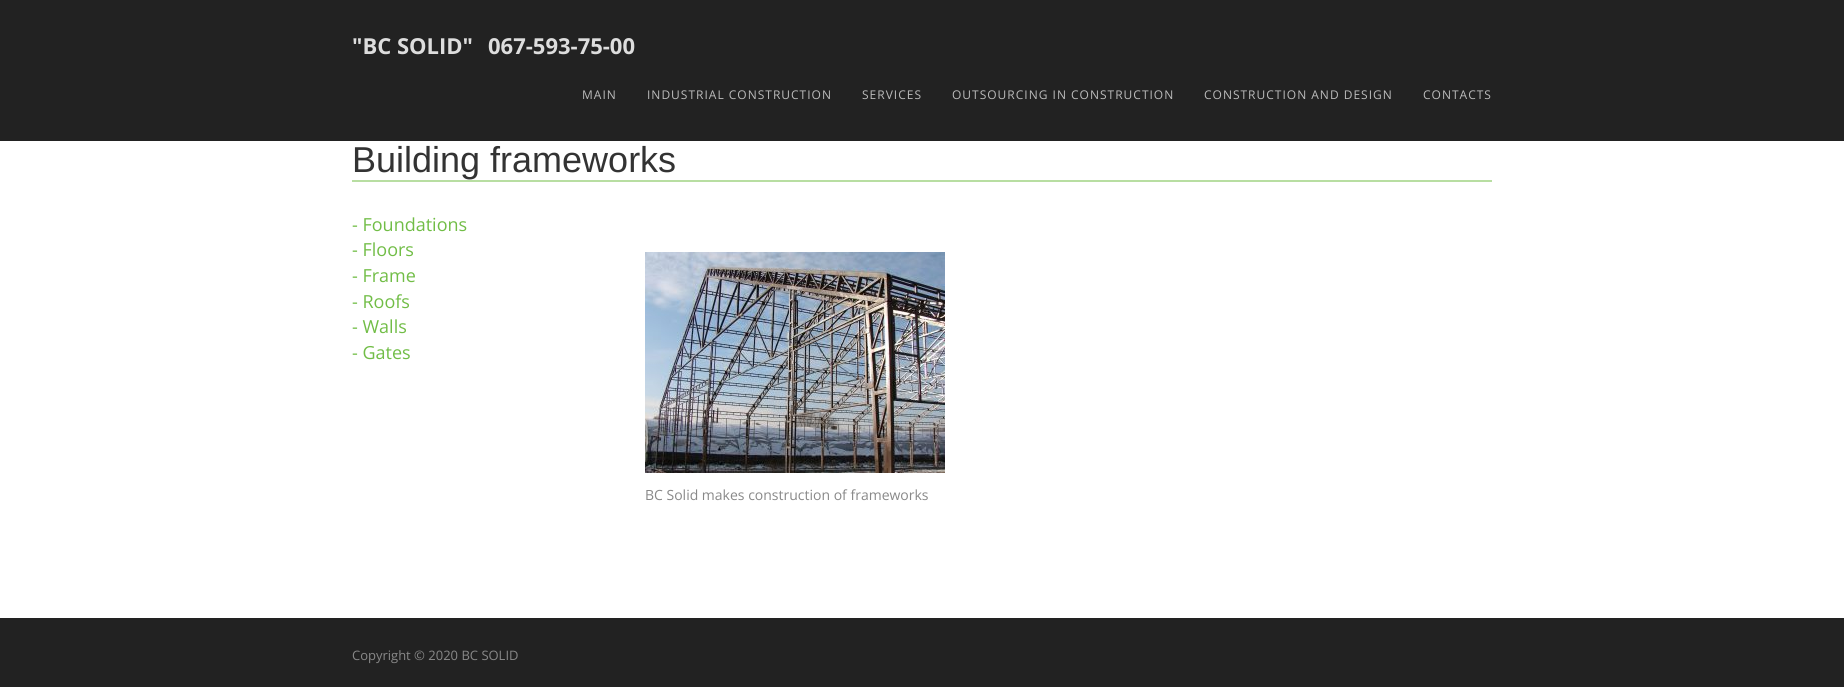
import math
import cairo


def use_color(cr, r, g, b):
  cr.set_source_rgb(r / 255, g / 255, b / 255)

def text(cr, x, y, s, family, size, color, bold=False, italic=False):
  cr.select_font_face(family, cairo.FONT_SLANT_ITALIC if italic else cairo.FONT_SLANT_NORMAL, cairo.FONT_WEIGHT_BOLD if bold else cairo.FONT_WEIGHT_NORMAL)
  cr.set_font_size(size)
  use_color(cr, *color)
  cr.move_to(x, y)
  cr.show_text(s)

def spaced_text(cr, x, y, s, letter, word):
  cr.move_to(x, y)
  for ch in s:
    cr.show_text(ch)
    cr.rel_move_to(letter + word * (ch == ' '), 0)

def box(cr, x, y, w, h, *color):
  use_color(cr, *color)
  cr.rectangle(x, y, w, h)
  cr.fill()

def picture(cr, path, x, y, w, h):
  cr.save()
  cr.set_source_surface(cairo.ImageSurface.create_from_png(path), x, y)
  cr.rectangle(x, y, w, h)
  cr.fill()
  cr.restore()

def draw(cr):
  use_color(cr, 255, 255, 255)
  cr.paint()
  box(cr, 0, 0, 1844, 141, 34, 34, 34)
  box(cr, 352, 180, 1140, 2, 184, 222, 162)
  picture(cr, "img_01.png", 645, 252, 300, 221)
  box(cr, 0, 618, 1844, 69, 34, 34, 34)
  text(cr, 352, 54, "\"BC SOLID\"", "Open Sans", 22, (221, 221, 221), bold=True)
  text(cr, 488, 54, "067-593-75-00", "Open Sans", 22, (221, 221, 221), bold=True)
  cr.select_font_face("Open Sans")
  cr.set_font_size(12)
  use_color(cr, 187, 187, 187)
  spaced_text(cr, 582, 99, "MAIN", 1, 0)
  spaced_text(cr, 647, 99, "INDUSTRIAL CONSTRUCTION", 1, 0)
  spaced_text(cr, 862, 99, "SERVICES", 1, 0)
  spaced_text(cr, 952, 99, "OUTSOURCING IN CONSTRUCTION", 1, 0)
  spaced_text(cr, 1204, 99, "CONSTRUCTION AND DESIGN", 1, 0)
  spaced_text(cr, 1423, 99, "CONTACTS", 1, 0)
  text(cr, 352, 172, "Building frameworks", "Liberation Sans", 36, (51, 51, 51))
  text(cr, 352, 231, "- Foundations", "Open Sans", 18, (113, 189, 70))
  text(cr, 352, 256, "- Floors", "Open Sans", 18, (113, 189, 70))
  text(cr, 352, 282, "- Frame", "Open Sans", 18, (113, 189, 70))
  text(cr, 352, 308, "- Roofs", "Open Sans", 18, (113, 189, 70))
  text(cr, 352, 333, "- Walls", "Open Sans", 18, (113, 189, 70))
  text(cr, 352, 359, "- Gates", "Open Sans", 18, (113, 189, 70))
  text(cr, 645, 500, "BC Solid makes construction of frameworks", "Open Sans", 14, (136, 136, 136))
  text(cr, 352, 660, "Copyright © 2020 BC SOLID", "Open Sans", 13, (136, 136, 136))


surface = cairo.ImageSurface(cairo.FORMAT_RGB24, 1844, 687)
cr = cairo.Context(surface)
options = cairo.FontOptions()
options.set_hint_metrics(cairo.HINT_METRICS_OFF)
options.set_hint_style(cairo.HINT_STYLE_NONE)
cr.set_font_options(options)
cr.set_miter_limit(4)
draw(cr)
surface.write_to_png("out.png")
